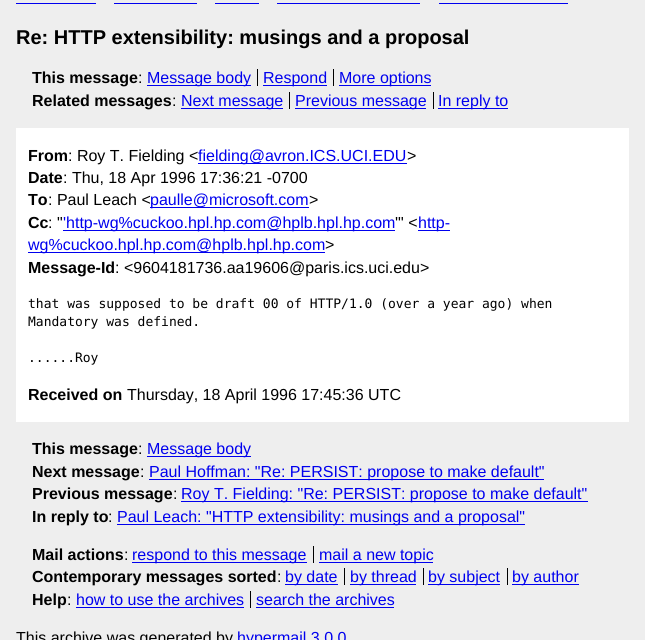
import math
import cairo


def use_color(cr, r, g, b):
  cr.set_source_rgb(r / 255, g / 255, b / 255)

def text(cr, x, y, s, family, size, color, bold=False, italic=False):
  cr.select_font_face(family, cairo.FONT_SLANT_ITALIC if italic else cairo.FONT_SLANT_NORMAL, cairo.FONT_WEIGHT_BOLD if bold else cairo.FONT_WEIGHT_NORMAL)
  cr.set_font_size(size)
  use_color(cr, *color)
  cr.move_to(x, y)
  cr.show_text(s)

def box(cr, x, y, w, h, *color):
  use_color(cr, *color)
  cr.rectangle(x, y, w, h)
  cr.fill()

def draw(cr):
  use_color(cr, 238, 238, 238)
  cr.paint()
  box(cr, 16, 3, 80, 1, 0, 0, 238)
  box(cr, 114, 3, 83, 1, 0, 0, 238)
  box(cr, 215, 3, 44, 1, 0, 0, 238)
  box(cr, 277, 3, 143, 1, 0, 0, 238)
  box(cr, 439, 3, 129, 1, 0, 0, 238)
  box(cr, 147, 85, 104, 1, 0, 0, 238)
  box(cr, 257, 69, 1, 17, 0, 0, 0)
  box(cr, 263, 85, 64, 1, 0, 0, 238)
  box(cr, 333, 69, 1, 17, 0, 0, 0)
  box(cr, 339, 85, 92, 1, 0, 0, 238)
  box(cr, 181, 108, 102, 1, 0, 0, 238)
  box(cr, 289, 92, 1, 17, 0, 0, 0)
  box(cr, 295, 108, 131, 1, 0, 0, 238)
  box(cr, 433, 92, 1, 17, 0, 0, 0)
  box(cr, 438, 108, 70, 1, 0, 0, 238)
  box(cr, 16, 128, 613, 294, 255, 255, 255)
  box(cr, 198, 163, 209, 1, 0, 0, 238)
  box(cr, 150, 207, 159, 1, 0, 0, 238)
  box(cr, 63, 230, 332, 1, 0, 0, 238)
  box(cr, 418, 230, 32, 1, 0, 0, 238)
  box(cr, 28, 252, 297, 1, 0, 0, 238)
  box(cr, 147, 456, 104, 1, 0, 0, 238)
  box(cr, 149, 479, 395, 1, 0, 0, 238)
  box(cr, 181, 501, 407, 1, 0, 0, 238)
  box(cr, 117, 524, 408, 1, 0, 0, 238)
  box(cr, 132, 562, 175, 1, 0, 0, 238)
  box(cr, 313, 546, 1, 17, 0, 0, 0)
  box(cr, 319, 562, 114, 1, 0, 0, 238)
  box(cr, 285, 584, 53, 1, 0, 0, 238)
  box(cr, 344, 568, 1, 17, 0, 0, 0)
  box(cr, 350, 584, 66, 1, 0, 0, 238)
  box(cr, 423, 568, 1, 17, 0, 0, 0)
  box(cr, 428, 584, 72, 1, 0, 0, 238)
  box(cr, 507, 568, 1, 17, 0, 0, 0)
  box(cr, 512, 584, 67, 1, 0, 0, 238)
  box(cr, 76, 607, 168, 1, 0, 0, 238)
  box(cr, 250, 591, 1, 17, 0, 0, 0)
  box(cr, 256, 607, 138, 1, 0, 0, 238)
  text(cr, 16, 44, "Re: HTTP extensibility: musings and a proposal", "Liberation Sans", 20, (0, 0, 0), bold=True)
  text(cr, 32, 83, "This message", "Liberation Sans", 16, (0, 0, 0), bold=True)
  text(cr, 138, 83, ":", "Liberation Sans", 16, (0, 0, 0))
  text(cr, 147, 83, "Message body", "Liberation Sans", 16, (0, 0, 238))
  text(cr, 263, 83, "Respond", "Liberation Sans", 16, (0, 0, 238))
  text(cr, 339, 83, "More options", "Liberation Sans", 16, (0, 0, 238))
  text(cr, 32, 106, "Related messages", "Liberation Sans", 16, (0, 0, 0), bold=True)
  text(cr, 172, 106, ":", "Liberation Sans", 16, (0, 0, 0))
  text(cr, 181, 106, "Next message", "Liberation Sans", 16, (0, 0, 238))
  text(cr, 295, 106, "Previous message", "Liberation Sans", 16, (0, 0, 238))
  text(cr, 438, 106, "In reply to", "Liberation Sans", 16, (0, 0, 238))
  text(cr, 28, 161, "From", "Liberation Sans", 16, (0, 0, 0), bold=True)
  text(cr, 68, 161, ": Roy T. Fielding <", "Liberation Sans", 16, (0, 0, 0))
  text(cr, 198, 161, "fielding@avron.ICS.UCI.EDU", "Liberation Sans", 16, (0, 0, 238))
  text(cr, 407, 161, ">", "Liberation Sans", 16, (0, 0, 0))
  text(cr, 28, 183, "Date", "Liberation Sans", 16, (0, 0, 0), bold=True)
  text(cr, 63, 183, ": Thu, 18 Apr 1996 17:36:21 -0700", "Liberation Sans", 16, (0, 0, 0))
  text(cr, 28, 205, "To", "Liberation Sans", 16, (0, 0, 0), bold=True)
  text(cr, 48, 205, ": Paul Leach <", "Liberation Sans", 16, (0, 0, 0))
  text(cr, 150, 205, "paulle@microsoft.com", "Liberation Sans", 16, (0, 0, 238))
  text(cr, 309, 205, ">", "Liberation Sans", 16, (0, 0, 0))
  text(cr, 28, 228, "Cc", "Liberation Sans", 16, (0, 0, 0), bold=True)
  text(cr, 48, 228, ": \"", "Liberation Sans", 16, (0, 0, 0))
  text(cr, 63, 228, "'http-wg%cuckoo.hpl.hp.com@hplb.hpl.hp.com", "Liberation Sans", 16, (0, 0, 238))
  text(cr, 395, 228, "'\" <", "Liberation Sans", 16, (0, 0, 0))
  text(cr, 418, 228, "http-", "Liberation Sans", 16, (0, 0, 238))
  text(cr, 28, 250, "wg%cuckoo.hpl.hp.com@hplb.hpl.hp.com", "Liberation Sans", 16, (0, 0, 238))
  text(cr, 325, 250, ">", "Liberation Sans", 16, (0, 0, 0))
  text(cr, 28, 273, "Message-Id", "Liberation Sans", 16, (0, 0, 0), bold=True)
  text(cr, 115, 273, ": <9604181736.aa19606@paris.ics.uci.edu>", "Liberation Sans", 16, (0, 0, 0))
  text(cr, 28, 308, "that was supposed to be draft 00 of HTTP/1.0 (over a year ago) when", "DejaVu Sans Mono", 13, (0, 0, 0))
  text(cr, 28, 326, "Mandatory was defined.", "DejaVu Sans Mono", 13, (0, 0, 0))
  text(cr, 28, 362, "......Roy", "DejaVu Sans Mono", 13, (0, 0, 0))
  text(cr, 28, 400, "Received on", "Liberation Sans", 16, (0, 0, 0), bold=True)
  text(cr, 127, 400, "Thursday, 18 April 1996 17:45:36 UTC", "Liberation Sans", 16, (0, 0, 0))
  text(cr, 32, 454, "This message", "Liberation Sans", 16, (0, 0, 0), bold=True)
  text(cr, 138, 454, ":", "Liberation Sans", 16, (0, 0, 0))
  text(cr, 147, 454, "Message body", "Liberation Sans", 16, (0, 0, 238))
  text(cr, 32, 477, "Next message", "Liberation Sans", 16, (0, 0, 0), bold=True)
  text(cr, 140, 477, ":", "Liberation Sans", 16, (0, 0, 0))
  text(cr, 149, 477, "Paul Hoffman: \"Re: PERSIST: propose to make default\"", "Liberation Sans", 16, (0, 0, 238))
  text(cr, 32, 499, "Previous message", "Liberation Sans", 16, (0, 0, 0), bold=True)
  text(cr, 173, 499, ":", "Liberation Sans", 16, (0, 0, 0))
  text(cr, 181, 499, "Roy T. Fielding: \"Re: PERSIST: propose to make default\"", "Liberation Sans", 16, (0, 0, 238))
  text(cr, 32, 522, "In reply to", "Liberation Sans", 16, (0, 0, 0), bold=True)
  text(cr, 108, 522, ":", "Liberation Sans", 16, (0, 0, 0))
  text(cr, 117, 522, "Paul Leach: \"HTTP extensibility: musings and a proposal\"", "Liberation Sans", 16, (0, 0, 238))
  text(cr, 32, 560, "Mail actions", "Liberation Sans", 16, (0, 0, 0), bold=True)
  text(cr, 124, 560, ":", "Liberation Sans", 16, (0, 0, 0))
  text(cr, 132, 560, "respond to this message", "Liberation Sans", 16, (0, 0, 238))
  text(cr, 319, 560, "mail a new topic", "Liberation Sans", 16, (0, 0, 238))
  text(cr, 32, 582, "Contemporary messages sorted", "Liberation Sans", 16, (0, 0, 0), bold=True)
  text(cr, 277, 582, ":", "Liberation Sans", 16, (0, 0, 0))
  text(cr, 285, 582, "by date", "Liberation Sans", 16, (0, 0, 238))
  text(cr, 350, 582, "by thread", "Liberation Sans", 16, (0, 0, 238))
  text(cr, 428, 582, "by subject", "Liberation Sans", 16, (0, 0, 238))
  text(cr, 512, 582, "by author", "Liberation Sans", 16, (0, 0, 238))
  text(cr, 32, 605, "Help", "Liberation Sans", 16, (0, 0, 0), bold=True)
  text(cr, 67, 605, ":", "Liberation Sans", 16, (0, 0, 0))
  text(cr, 76, 605, "how to use the archives", "Liberation Sans", 16, (0, 0, 238))
  text(cr, 256, 605, "search the archives", "Liberation Sans", 16, (0, 0, 238))
  text(cr, 16, 643, "This archive was generated by", "Liberation Sans", 16, (0, 0, 0))
  text(cr, 237, 643, "hypermail 3.0.0", "Liberation Sans", 16, (0, 0, 238))


surface = cairo.ImageSurface(cairo.FORMAT_RGB24, 645, 640)
cr = cairo.Context(surface)
options = cairo.FontOptions()
options.set_hint_metrics(cairo.HINT_METRICS_OFF)
options.set_hint_style(cairo.HINT_STYLE_NONE)
cr.set_font_options(options)
cr.set_miter_limit(4)
draw(cr)
surface.write_to_png("out.png")
